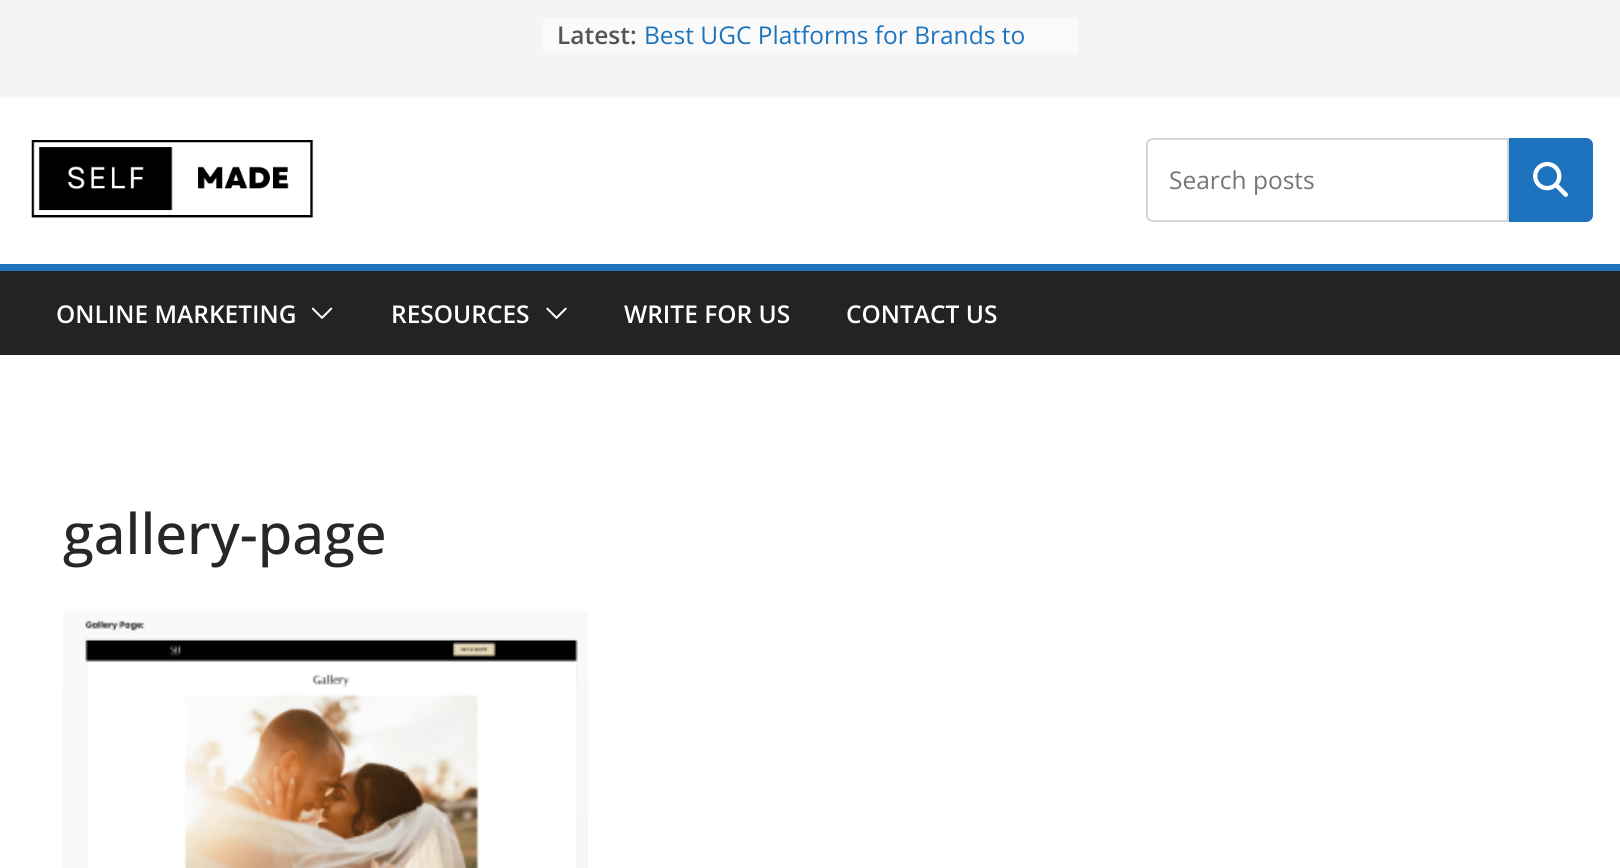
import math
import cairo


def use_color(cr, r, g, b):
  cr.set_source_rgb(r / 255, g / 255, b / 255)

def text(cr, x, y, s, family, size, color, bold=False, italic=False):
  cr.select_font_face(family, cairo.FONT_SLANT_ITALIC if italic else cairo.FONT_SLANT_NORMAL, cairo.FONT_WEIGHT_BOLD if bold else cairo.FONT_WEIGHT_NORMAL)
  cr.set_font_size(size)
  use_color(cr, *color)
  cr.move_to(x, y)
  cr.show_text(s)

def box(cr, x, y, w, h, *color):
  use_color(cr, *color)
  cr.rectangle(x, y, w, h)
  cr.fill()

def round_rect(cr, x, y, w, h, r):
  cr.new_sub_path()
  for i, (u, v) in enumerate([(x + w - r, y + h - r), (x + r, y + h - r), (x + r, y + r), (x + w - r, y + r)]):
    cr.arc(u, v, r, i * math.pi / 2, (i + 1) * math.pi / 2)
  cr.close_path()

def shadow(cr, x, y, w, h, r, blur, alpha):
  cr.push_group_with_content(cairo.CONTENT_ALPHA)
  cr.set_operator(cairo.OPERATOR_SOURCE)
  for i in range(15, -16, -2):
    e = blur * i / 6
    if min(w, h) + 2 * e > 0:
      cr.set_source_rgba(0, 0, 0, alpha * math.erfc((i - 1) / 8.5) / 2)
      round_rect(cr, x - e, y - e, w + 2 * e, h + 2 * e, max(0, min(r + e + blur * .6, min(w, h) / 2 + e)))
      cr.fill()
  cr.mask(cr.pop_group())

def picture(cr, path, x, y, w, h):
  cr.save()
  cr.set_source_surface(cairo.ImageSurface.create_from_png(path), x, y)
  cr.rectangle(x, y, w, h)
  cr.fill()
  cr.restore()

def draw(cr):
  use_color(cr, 255, 255, 255)
  cr.paint()
  use_color(cr, 0, 0, 0)
  shadow(cr, 0, 0, 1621, 96, 0, 2, 0.1)
  box(cr, 0, 0, 1620, 96, 244, 244, 245)
  box(cr, 543, 18, 535, 35, 250, 250, 250)
  picture(cr, "img_01.png", 31, 140, 283, 78)
  cr.new_path()
  cr.move_to(1153, 139)
  cr.line_to(1508, 139)
  cr.line_to(1508, 221)
  cr.line_to(1153, 221)
  cr.curve_to(1149.5, 221, 1147, 218.5, 1147, 215)
  cr.line_to(1147, 145)
  cr.curve_to(1147, 141.5, 1149.5, 139, 1153, 139)
  cr.close_path()
  use_color(cr, 212, 212, 216)
  cr.stroke()
  use_color(cr, 30, 115, 190)
  cr.new_path()
  cr.move_to(1509, 138)
  cr.line_to(1586, 138)
  cr.curve_to(1590, 138, 1593, 141, 1593, 145)
  cr.line_to(1593, 215)
  cr.curve_to(1593, 219, 1590, 222, 1586, 222)
  cr.line_to(1509, 222)
  cr.close_path()
  cr.fill()
  picture(cr, "img_02.png", 1533, 161, 35, 36)
  box(cr, 0, 271, 1620, 84, 35, 35, 35)
  box(cr, 0, 264, 1620, 7, 30, 115, 190)
  picture(cr, "img_03.png", 311, 307, 22, 12)
  picture(cr, "img_04.png", 546, 307, 21, 12)
  picture(cr, "img_05.png", 63, 611, 525, 257)
  text(cr, 557, 44, "Latest:", "Open Sans SemiBold", 24.5, (85, 85, 85))
  text(cr, 644, 44, "Best UGC Platforms for Brands to", "Open Sans", 24.5, (30, 115, 190))
  text(cr, 1169, 189, "Search posts", "Open Sans", 24.5, (117, 117, 117))
  text(cr, 56, 323, "ONLINE MARKETING", "Open Sans SemiBold", 24.5, (255, 255, 255))
  text(cr, 391, 323, "RESOURCES", "Open Sans SemiBold", 24.5, (255, 255, 255))
  text(cr, 624, 323, "WRITE FOR US", "Open Sans SemiBold", 24.5, (255, 255, 255))
  text(cr, 846, 323, "CONTACT US", "Open Sans SemiBold", 24.5, (255, 255, 255))
  text(cr, 63, 554, "gallery-page", "Open Sans Medium", 56, (39, 39, 42))


surface = cairo.ImageSurface(cairo.FORMAT_RGB24, 1620, 868)
cr = cairo.Context(surface)
options = cairo.FontOptions()
options.set_hint_metrics(cairo.HINT_METRICS_OFF)
options.set_hint_style(cairo.HINT_STYLE_NONE)
cr.set_font_options(options)
cr.set_miter_limit(4)
draw(cr)
surface.write_to_png("out.png")
